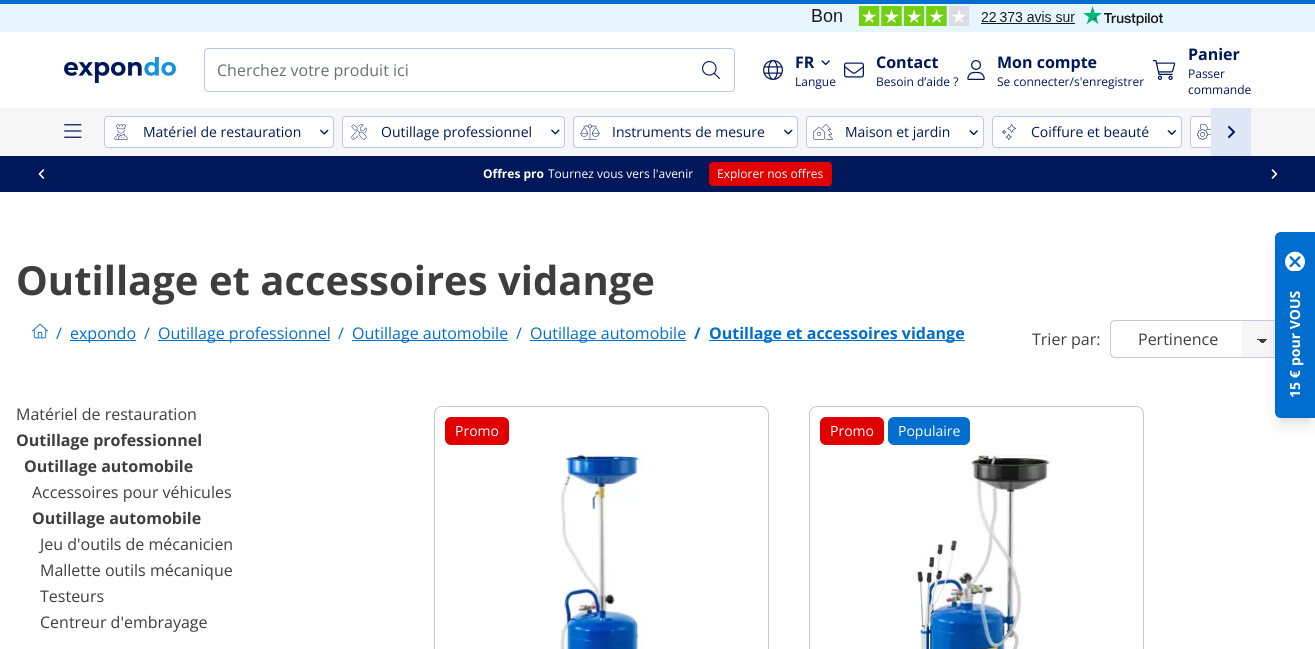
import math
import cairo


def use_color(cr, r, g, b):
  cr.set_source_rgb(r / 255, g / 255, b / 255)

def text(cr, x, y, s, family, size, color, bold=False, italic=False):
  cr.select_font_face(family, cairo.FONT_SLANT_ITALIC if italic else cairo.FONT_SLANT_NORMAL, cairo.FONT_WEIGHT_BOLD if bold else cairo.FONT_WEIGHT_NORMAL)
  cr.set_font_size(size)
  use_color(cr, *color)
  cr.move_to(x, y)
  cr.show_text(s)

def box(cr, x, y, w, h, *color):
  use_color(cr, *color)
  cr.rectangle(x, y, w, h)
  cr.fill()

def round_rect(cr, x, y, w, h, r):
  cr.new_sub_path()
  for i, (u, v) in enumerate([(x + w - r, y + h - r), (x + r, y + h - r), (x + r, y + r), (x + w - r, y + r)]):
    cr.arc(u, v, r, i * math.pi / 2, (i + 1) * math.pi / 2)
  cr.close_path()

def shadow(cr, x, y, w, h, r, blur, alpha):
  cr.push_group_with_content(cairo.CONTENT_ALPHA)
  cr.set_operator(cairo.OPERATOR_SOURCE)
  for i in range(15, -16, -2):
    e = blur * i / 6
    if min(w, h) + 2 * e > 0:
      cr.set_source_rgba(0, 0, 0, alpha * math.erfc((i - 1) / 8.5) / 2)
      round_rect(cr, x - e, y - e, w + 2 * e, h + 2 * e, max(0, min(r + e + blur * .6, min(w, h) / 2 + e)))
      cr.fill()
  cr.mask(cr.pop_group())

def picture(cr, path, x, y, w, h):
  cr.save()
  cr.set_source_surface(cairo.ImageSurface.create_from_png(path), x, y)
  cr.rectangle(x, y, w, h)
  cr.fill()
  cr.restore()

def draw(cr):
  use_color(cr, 255, 255, 255)
  cr.paint()
  box(cr, 0, 0, 1315, 4, 0, 110, 206)
  box(cr, 0, 4, 1315, 28, 231, 245, 255)
  picture(cr, "img_01.png", 812, 6, 351, 20)
  picture(cr, "img_02.png", 64, 57, 112, 26)
  round_rect(cr, 204.5, 48.5, 530, 43, 3.5)
  use_color(cr, 185, 200, 228)
  cr.set_line_width(1)
  cr.stroke()
  picture(cr, "img_03.png", 702, 61, 18, 18)
  picture(cr, "img_04.png", 763, 60, 20, 20)
  picture(cr, "img_05.png", 821, 60, 9, 6)
  picture(cr, "img_06.png", 844, 62, 20, 16)
  picture(cr, "img_07.png", 967, 60, 18, 20)
  picture(cr, "img_08.png", 1152, 60, 24, 20)
  box(cr, 0, 108, 1315, 48, 246, 246, 246)
  picture(cr, "img_09.png", 64, 124, 18, 14)
  use_color(cr, 255, 255, 255)
  round_rect(cr, 104.5, 116.5, 229, 31, 3.5)
  cr.fill_preserve()
  use_color(cr, 185, 200, 228)
  cr.stroke()
  picture(cr, "img_10.png", 114, 124, 14, 16)
  picture(cr, "img_11.png", 320, 129, 9, 6)
  use_color(cr, 255, 255, 255)
  round_rect(cr, 342.5, 116.5, 222, 31, 3.5)
  cr.fill_preserve()
  use_color(cr, 185, 200, 228)
  cr.stroke()
  picture(cr, "img_12.png", 351, 124, 16, 16)
  picture(cr, "img_13.png", 551, 129, 9, 6)
  use_color(cr, 255, 255, 255)
  round_rect(cr, 573.5, 116.5, 224, 31, 3.5)
  cr.fill_preserve()
  use_color(cr, 185, 200, 228)
  cr.stroke()
  picture(cr, "img_14.png", 580, 124, 20, 16)
  picture(cr, "img_15.png", 784, 129, 9, 6)
  use_color(cr, 255, 255, 255)
  round_rect(cr, 806.5, 116.5, 177, 31, 3.5)
  cr.fill_preserve()
  use_color(cr, 185, 200, 228)
  cr.stroke()
  picture(cr, "img_16.png", 813, 124, 20, 16)
  picture(cr, "img_17.png", 969, 130, 9, 6)
  use_color(cr, 255, 255, 255)
  round_rect(cr, 992.5, 116.5, 189, 31, 3.5)
  cr.fill_preserve()
  use_color(cr, 185, 200, 228)
  cr.stroke()
  picture(cr, "img_18.png", 1002, 124, 14, 16)
  picture(cr, "img_19.png", 1167, 130, 9, 5)
  use_color(cr, 255, 255, 255)
  cr.new_path()
  cr.move_to(1194, 116)
  cr.line_to(1251, 116)
  cr.line_to(1251, 148)
  cr.line_to(1194, 148)
  cr.curve_to(1192, 148, 1190, 146, 1190, 144)
  cr.line_to(1190, 120)
  cr.curve_to(1190, 118, 1192, 116, 1194, 116)
  cr.close_path()
  cr.fill()
  cr.save()
  cr.rectangle(104, 108, 1147, 48)
  cr.clip()
  round_rect(cr, 1190.5, 116.5, 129, 31, 3.5)
  use_color(cr, 185, 200, 228)
  cr.stroke()
  cr.restore()
  picture(cr, "img_20.png", 1197, 124, 14, 16)
  box(cr, 1211, 108, 40, 48, 223, 231, 246)
  picture(cr, "img_21.png", 1228, 126, 7, 12)
  box(cr, 0, 156, 1315, 36, 0, 23, 90)
  picture(cr, "img_22.png", 38, 169, 7, 10)
  use_color(cr, 224, 0, 0)
  round_rect(cr, 709, 162, 123, 24, 4)
  cr.fill()
  picture(cr, "img_23.png", 1271, 169, 7, 10)
  picture(cr, "img_24.png", 32, 323, 16, 16)
  box(cr, 70, 340, 66, 1, 0, 110, 206)
  box(cr, 158, 340, 172, 1, 0, 110, 206)
  box(cr, 352, 340, 156, 1, 0, 110, 206)
  box(cr, 530, 340, 156, 1, 0, 110, 206)
  box(cr, 709, 340, 256, 1, 0, 110, 206)
  box(cr, 1242, 321, 33, 36, 246, 246, 246)
  gradient = cairo.LinearGradient(1262, 339, 1267, 344)
  gradient.add_color_stop_rgba(0.5, 0.243, 0.243, 0.251, 1)
  gradient.add_color_stop_rgba(0.5, 0.965, 0.965, 0.965, 1)
  cr.set_source(gradient)
  cr.rectangle(1262, 339, 5, 4)
  cr.fill()
  gradient = cairo.LinearGradient(1257, 344, 1262, 339)
  gradient.add_color_stop_rgba(0.5, 0.965, 0.965, 0.965, 1)
  gradient.add_color_stop_rgba(0.5, 0.243, 0.243, 0.251, 1)
  cr.set_source(gradient)
  cr.rectangle(1257, 339, 5, 4)
  cr.fill()
  round_rect(cr, 1110.5, 320.5, 172, 37, 4.5)
  use_color(cr, 196, 200, 216)
  cr.stroke()
  round_rect(cr, 434.5, 406.5, 334, 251, 7.5)
  use_color(cr, 197, 199, 201)
  cr.stroke()
  use_color(cr, 224, 0, 0)
  round_rect(cr, 445, 417, 64, 28, 6)
  cr.fill()
  picture(cr, "img_25.png", 560, 453, 85, 196)
  round_rect(cr, 809.5, 406.5, 334, 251, 7.5)
  use_color(cr, 197, 199, 201)
  cr.stroke()
  use_color(cr, 224, 0, 0)
  round_rect(cr, 820, 417, 64, 28, 6)
  cr.fill()
  use_color(cr, 0, 110, 206)
  round_rect(cr, 888, 417, 82, 28, 6)
  cr.fill()
  picture(cr, "img_26.png", 915, 453, 135, 196)
  use_color(cr, 0, 0, 0)
  shadow(cr, 1279, 240, 32, 178, 2, 3, 0.1)
  shadow(cr, 1278, 245, 34, 180, 3, 7.5, 0.1)
  use_color(cr, 0, 110, 206)
  cr.new_path()
  cr.move_to(1281, 232)
  cr.line_to(1315, 232)
  cr.line_to(1315, 418)
  cr.line_to(1281, 418)
  cr.curve_to(1277.5, 418, 1275, 415.5, 1275, 412)
  cr.line_to(1275, 238)
  cr.curve_to(1275, 234.5, 1277.5, 232, 1281, 232)
  cr.close_path()
  cr.fill()
  picture(cr, "img_27.png", 1285, 251, 20, 20)
  text(cr, 217, 76, "Cherchez votre produit ici", "Open Sans", 16, (107, 109, 117))
  text(cr, 795, 68, "FR", "Open Sans", 16, (0, 23, 90), bold=True)
  text(cr, 795, 86, "Langue", "Open Sans", 12, (0, 23, 90))
  text(cr, 876, 68, "Contact", "Open Sans", 16, (0, 23, 90), bold=True)
  text(cr, 876, 86, "Besoin d’aide ?", "Open Sans", 12, (0, 23, 90))
  text(cr, 997, 68, "Mon compte", "Open Sans", 16, (0, 23, 90), bold=True)
  text(cr, 997, 86, "Se connecter/s'enregistrer", "Open Sans", 12, (0, 23, 90))
  text(cr, 1188, 60, "Panier", "Open Sans", 16, (0, 23, 90), bold=True)
  text(cr, 1188, 78, "Passer", "Open Sans", 12, (0, 23, 90))
  text(cr, 1188, 94, "commande", "Open Sans", 12, (0, 23, 90))
  text(cr, 143, 137, "Matériel de restauration", "Open Sans", 14, (0, 23, 90))
  text(cr, 381, 137, "Outillage professionnel", "Open Sans", 14, (0, 23, 90))
  text(cr, 612, 137, "Instruments de mesure", "Open Sans", 14, (0, 23, 90))
  text(cr, 845, 137, "Maison et jardin", "Open Sans", 14, (0, 23, 90))
  text(cr, 1031, 137, "Coiffure et beauté", "Open Sans", 14, (0, 23, 90))
  text(cr, 483, 178, "Offres pro", "Open Sans", 12, (255, 255, 255), bold=True)
  text(cr, 548, 178, "Tournez vous vers l'avenir", "Open Sans", 12, (255, 255, 255))
  text(cr, 717, 178, "Explorer nos offres", "Open Sans", 12, (255, 255, 255))
  text(cr, 16, 295, "Outillage et accessoires vidange", "Open Sans", 40, (62, 62, 64), bold=True)
  text(cr, 56, 339, "/", "Open Sans", 16, (0, 110, 206))
  text(cr, 70, 339, "expondo", "Open Sans", 16, (0, 110, 206))
  text(cr, 144, 339, "/", "Open Sans", 16, (0, 110, 206))
  text(cr, 158, 339, "Outillage professionnel", "Open Sans", 16, (0, 110, 206))
  text(cr, 338, 339, "/", "Open Sans", 16, (0, 110, 206))
  text(cr, 352, 339, "Outillage automobile", "Open Sans", 16, (0, 110, 206))
  text(cr, 516, 339, "/", "Open Sans", 16, (0, 110, 206))
  text(cr, 530, 339, "Outillage automobile", "Open Sans", 16, (0, 110, 206))
  text(cr, 694, 339, "/", "Open Sans", 16, (0, 110, 206), bold=True)
  text(cr, 709, 339, "Outillage et accessoires vidange", "Open Sans", 16, (0, 110, 206), bold=True)
  text(cr, 1032, 345, "Trier par:", "Open Sans", 16, (62, 62, 64))
  text(cr, 1138, 345, "Pertinence", "Open Sans", 16, (62, 62, 64))
  text(cr, 16, 420, "Matériel de restauration", "Open Sans", 16, (62, 62, 64))
  text(cr, 16, 446, "Outillage professionnel", "Open Sans", 16, (62, 62, 64), bold=True)
  text(cr, 24, 472, "Outillage automobile", "Open Sans", 16, (62, 62, 64), bold=True)
  text(cr, 32, 498, "Accessoires pour véhicules", "Open Sans", 16, (62, 62, 64))
  text(cr, 32, 524, "Outillage automobile", "Open Sans", 16, (62, 62, 64), bold=True)
  text(cr, 40, 550, "Jeu d'outils de mécanicien", "Open Sans", 16, (62, 62, 64))
  text(cr, 40, 576, "Mallette outils mécanique", "Open Sans", 16, (62, 62, 64))
  text(cr, 40, 602, "Testeurs", "Open Sans", 16, (62, 62, 64))
  text(cr, 40, 628, "Centreur d'embrayage", "Open Sans", 16, (62, 62, 64))
  text(cr, 455, 436, "Promo", "Open Sans", 14, (255, 255, 255))
  text(cr, 830, 436, "Promo", "Open Sans", 14, (255, 255, 255))
  text(cr, 898, 436, "Populaire", "Open Sans", 14, (255, 255, 255))
  cr.save()
  cr.translate(1300, 366)
  cr.rotate(-90 * math.pi / 180)
  text(cr, 0, 0, "pour VOUS", "Open Sans", 14, (255, 255, 255), bold=True)
  cr.restore()
  cr.save()
  cr.translate(1300, 398)
  cr.rotate(-90 * math.pi / 180)
  text(cr, 0, 0, "15 €", "Open Sans", 14, (255, 255, 255), bold=True)
  cr.restore()


surface = cairo.ImageSurface(cairo.FORMAT_RGB24, 1315, 649)
cr = cairo.Context(surface)
options = cairo.FontOptions()
options.set_hint_metrics(cairo.HINT_METRICS_OFF)
options.set_hint_style(cairo.HINT_STYLE_NONE)
cr.set_font_options(options)
cr.set_miter_limit(4)
draw(cr)
surface.write_to_png("out.png")
